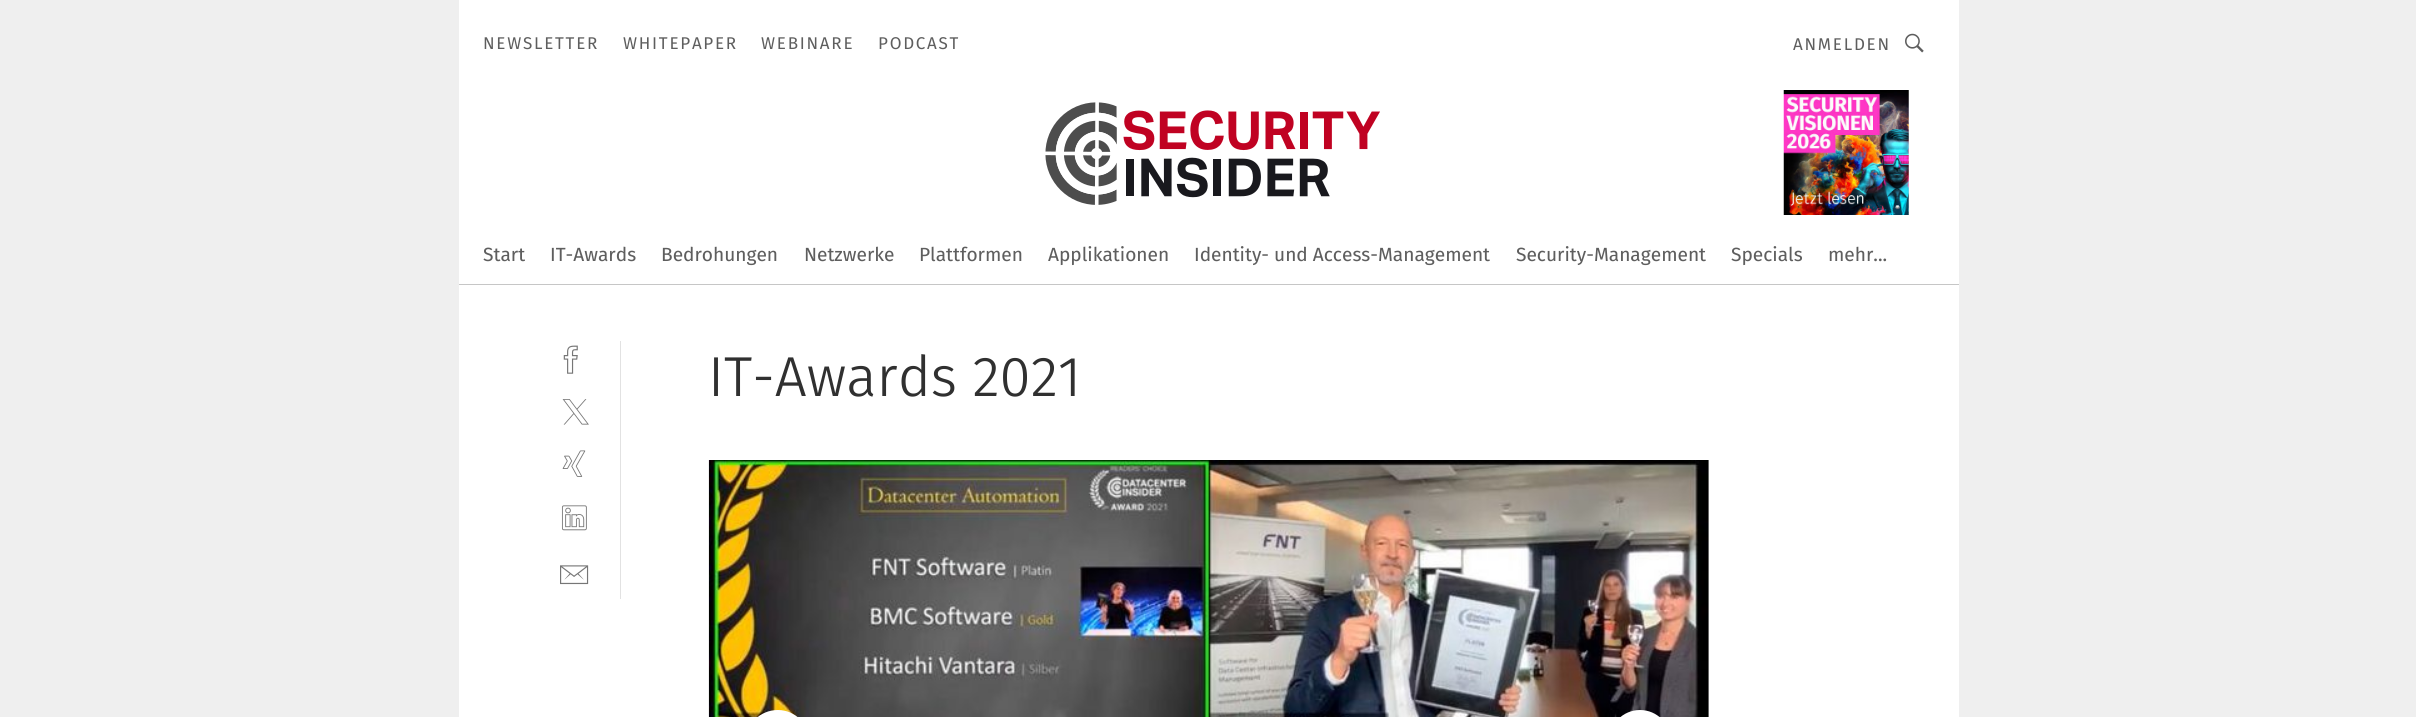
import math
import cairo


def use_color(cr, r, g, b):
  cr.set_source_rgb(r / 255, g / 255, b / 255)

def text(cr, x, y, s, family, size, color, bold=False, italic=False):
  cr.select_font_face(family, cairo.FONT_SLANT_ITALIC if italic else cairo.FONT_SLANT_NORMAL, cairo.FONT_WEIGHT_BOLD if bold else cairo.FONT_WEIGHT_NORMAL)
  cr.set_font_size(size)
  use_color(cr, *color)
  cr.move_to(x, y)
  cr.show_text(s)

def spaced_text(cr, x, y, s, letter, word):
  cr.move_to(x, y)
  for ch in s:
    cr.show_text(ch)
    cr.rel_move_to(letter + word * (ch == ' '), 0)

def box(cr, x, y, w, h, *color):
  use_color(cr, *color)
  cr.rectangle(x, y, w, h)
  cr.fill()

def picture(cr, path, x, y, w, h):
  cr.save()
  cr.set_source_surface(cairo.ImageSurface.create_from_png(path), x, y)
  cr.rectangle(x, y, w, h)
  cr.fill()
  cr.restore()

def draw(cr):
  use_color(cr, 239, 239, 239)
  cr.paint()
  box(cr, 459, 0, 1500, 717, 255, 255, 255)
  box(cr, 459, 284, 1500, 1, 198, 198, 198)
  picture(cr, "img_01.png", 1905, 33, 19, 20)
  picture(cr, "img_02.png", 1045, 102, 335, 103)
  picture(cr, "img_03.png", 1783, 90, 126, 125)
  box(cr, 620, 341, 1, 258, 226, 226, 226)
  picture(cr, "img_04.png", 563, 345, 15, 29)
  picture(cr, "img_05.png", 562, 399, 27, 26)
  picture(cr, "img_06.png", 562, 450, 24, 27)
  picture(cr, "img_07.png", 561, 505, 26, 26)
  picture(cr, "img_08.png", 560, 565, 29, 20)
  box(cr, 1708, 460, 1, 257, 239, 239, 239)
  picture(cr, "img_09.png", 708, 460, 1001, 257)
  use_color(cr, 255, 255, 255)
  cr.new_path()
  cr.move_to(778, 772)
  cr.curve_to(795, 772, 809, 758, 809, 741)
  cr.curve_to(809, 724, 795, 710, 778, 710)
  cr.curve_to(760, 710, 746, 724, 746, 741)
  cr.curve_to(746, 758, 760, 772, 778, 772)
  cr.fill()
  cr.new_path()
  cr.move_to(1640, 710)
  cr.curve_to(1623, 710, 1609, 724, 1609, 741)
  cr.curve_to(1609, 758, 1623, 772, 1640, 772)
  cr.curve_to(1657, 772, 1671, 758, 1671, 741)
  cr.curve_to(1671, 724, 1657, 710, 1640, 710)
  cr.fill()
  cr.select_font_face("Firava")
  cr.set_font_size(17)
  use_color(cr, 94, 94, 94)
  spaced_text(cr, 483, 49, "NEWSLETTER", 1.75, 0)
  spaced_text(cr, 623, 49, "WHITEPAPER", 1.75, 0)
  spaced_text(cr, 761, 49, "WEBINARE", 1.75, 0)
  spaced_text(cr, 878, 49, "PODCAST", 1.75, 0)
  spaced_text(cr, 1793, 50, "ANMELDEN", 1.75, 0)
  text(cr, 483, 261, "Start", "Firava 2", 19.1, (94, 94, 94))
  text(cr, 550, 261, "IT-Awards", "Firava 2", 19.1, (94, 94, 94))
  text(cr, 661, 261, "Bedrohungen", "Firava 2", 19.1, (94, 94, 94))
  text(cr, 804, 261, "Netzwerke", "Firava 2", 19.1, (94, 94, 94))
  text(cr, 919, 261, "Plattformen", "Firava 2", 19.1, (94, 94, 94))
  text(cr, 1048, 261, "Applikationen", "Firava 2", 19.1, (94, 94, 94))
  text(cr, 1194, 261, "Identity- und Access-Management", "Firava 2", 19.1, (94, 94, 94))
  text(cr, 1516, 261, "Security-Management", "Firava 2", 19.1, (94, 94, 94))
  text(cr, 1731, 261, "Specials", "Firava 2", 19.1, (94, 94, 94))
  text(cr, 1828, 261, "mehr...", "Firava 2", 19.1, (94, 94, 94))
  text(cr, 708, 396, "IT-Awards 2021", "Firava Light", 56.25, (48, 48, 48))


surface = cairo.ImageSurface(cairo.FORMAT_RGB24, 2416, 717)
cr = cairo.Context(surface)
options = cairo.FontOptions()
options.set_hint_metrics(cairo.HINT_METRICS_OFF)
options.set_hint_style(cairo.HINT_STYLE_NONE)
cr.set_font_options(options)
cr.set_miter_limit(4)
draw(cr)
surface.write_to_png("out.png")
